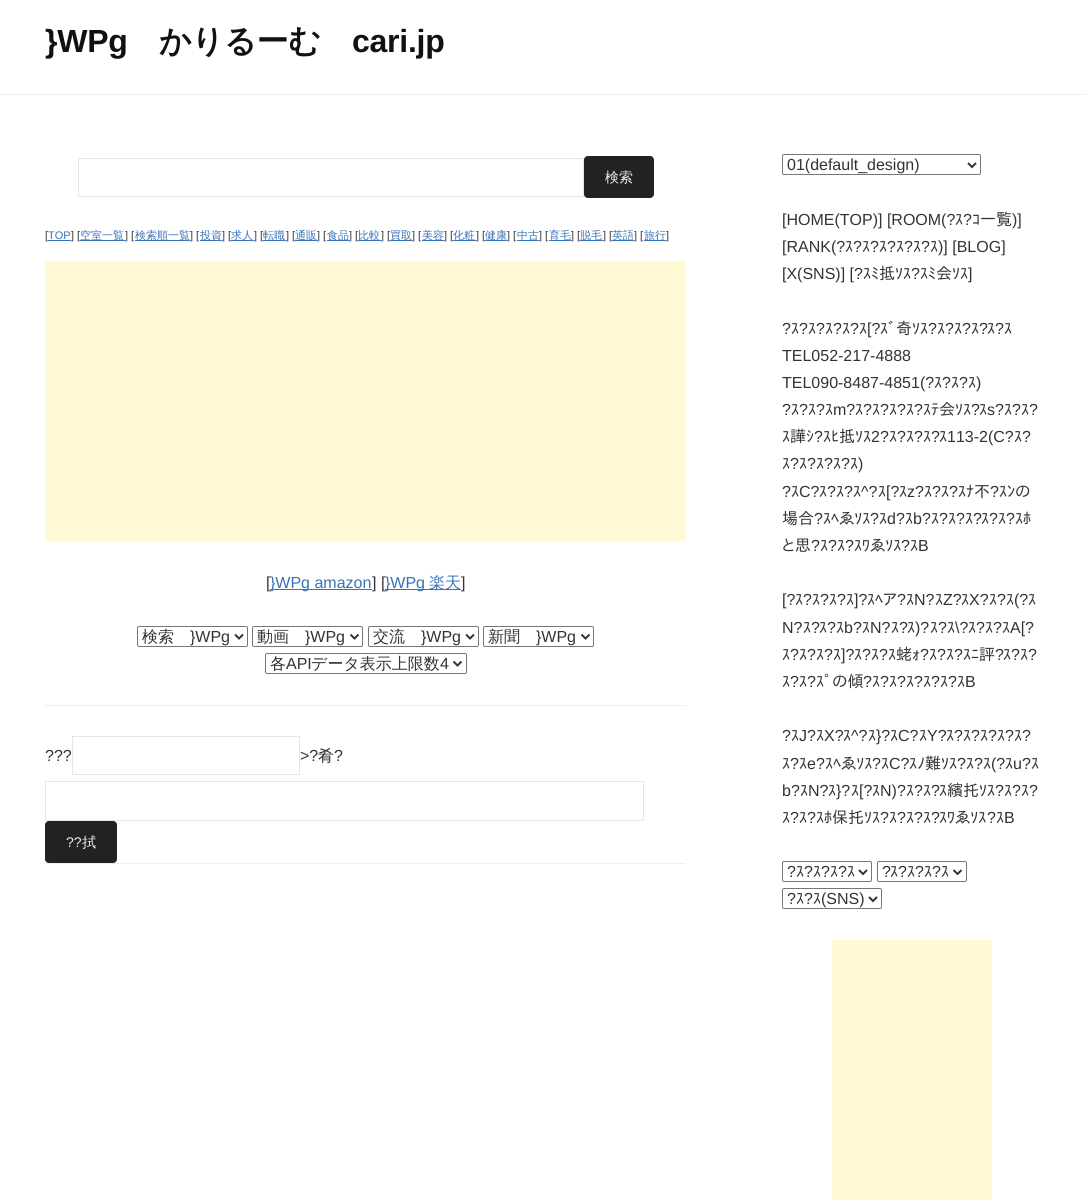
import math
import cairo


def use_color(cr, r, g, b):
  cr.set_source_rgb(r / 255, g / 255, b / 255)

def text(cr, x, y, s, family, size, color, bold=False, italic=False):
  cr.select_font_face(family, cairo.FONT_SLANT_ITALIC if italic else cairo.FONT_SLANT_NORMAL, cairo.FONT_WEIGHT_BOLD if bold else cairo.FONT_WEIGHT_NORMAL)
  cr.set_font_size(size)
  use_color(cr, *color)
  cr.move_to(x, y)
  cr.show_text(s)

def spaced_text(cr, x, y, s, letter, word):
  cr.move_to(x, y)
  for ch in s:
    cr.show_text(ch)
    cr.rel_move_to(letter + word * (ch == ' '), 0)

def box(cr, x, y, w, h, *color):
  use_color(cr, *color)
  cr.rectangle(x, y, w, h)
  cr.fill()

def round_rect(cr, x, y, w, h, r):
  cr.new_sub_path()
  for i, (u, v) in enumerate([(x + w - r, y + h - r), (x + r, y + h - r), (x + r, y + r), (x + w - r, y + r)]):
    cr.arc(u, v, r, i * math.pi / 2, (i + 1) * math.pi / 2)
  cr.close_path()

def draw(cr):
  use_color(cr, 255, 255, 255)
  cr.paint()
  box(cr, 0, 94, 1086, 1, 238, 238, 238)
  cr.rectangle(78.5, 158.5, 505, 38)
  use_color(cr, 230, 230, 230)
  cr.set_line_width(1)
  cr.stroke()
  use_color(cr, 34, 34, 34)
  round_rect(cr, 584, 156, 70, 42, 4)
  cr.fill()
  box(cr, 135, 240, 55, 1, 56, 114, 184)
  box(cr, 200, 240, 22, 1, 56, 114, 184)
  box(cr, 295, 240, 22, 1, 56, 114, 184)
  box(cr, 327, 240, 22, 1, 56, 114, 184)
  box(cr, 390, 240, 22, 1, 56, 114, 184)
  box(cr, 422, 240, 22, 1, 56, 114, 184)
  box(cr, 517, 240, 22, 1, 56, 114, 184)
  box(cr, 549, 240, 22, 1, 56, 114, 184)
  box(cr, 612, 240, 22, 1, 56, 114, 184)
  box(cr, 644, 240, 22, 1, 56, 114, 184)
  box(cr, 45, 261, 641, 280, 255, 250, 211)
  box(cr, 270, 589, 102, 1, 56, 114, 184)
  box(cr, 385, 589, 76, 1, 56, 114, 184)
  round_rect(cr, 137.5, 626.5, 110, 20, 1.5)
  use_color(cr, 118, 118, 118)
  cr.stroke()
  cr.new_path()
  cr.move_to(235, 634.5)
  cr.line_to(239, 638.5)
  cr.line_to(243, 634.5)
  use_color(cr, 51, 51, 51)
  cr.set_line_width(2)
  cr.stroke()
  round_rect(cr, 252.5, 626.5, 110, 20, 1.5)
  use_color(cr, 118, 118, 118)
  cr.set_line_width(1)
  cr.stroke()
  cr.new_path()
  cr.move_to(350.5, 634.5)
  cr.line_to(354.5, 638.5)
  cr.line_to(358.5, 634.5)
  use_color(cr, 51, 51, 51)
  cr.set_line_width(2)
  cr.stroke()
  round_rect(cr, 368.5, 626.5, 110, 20, 1.5)
  use_color(cr, 118, 118, 118)
  cr.set_line_width(1)
  cr.stroke()
  cr.new_path()
  cr.move_to(466, 634.5)
  cr.line_to(470, 638.5)
  cr.line_to(474, 634.5)
  use_color(cr, 51, 51, 51)
  cr.set_line_width(2)
  cr.stroke()
  round_rect(cr, 483.5, 626.5, 110, 20, 1.5)
  use_color(cr, 118, 118, 118)
  cr.set_line_width(1)
  cr.stroke()
  cr.new_path()
  cr.move_to(581.5, 634.5)
  cr.line_to(585.5, 638.5)
  cr.line_to(589.5, 634.5)
  use_color(cr, 51, 51, 51)
  cr.set_line_width(2)
  cr.stroke()
  round_rect(cr, 265.5, 653.5, 201, 20, 1.5)
  use_color(cr, 118, 118, 118)
  cr.set_line_width(1)
  cr.stroke()
  cr.new_path()
  cr.move_to(453.5, 661.5)
  cr.line_to(457.5, 665.5)
  cr.line_to(461.5, 661.5)
  use_color(cr, 51, 51, 51)
  cr.set_line_width(2)
  cr.stroke()
  box(cr, 45, 705, 641, 1, 238, 238, 238)
  cr.rectangle(72.5, 736.5, 227, 38)
  use_color(cr, 230, 230, 230)
  cr.set_line_width(1)
  cr.stroke()
  cr.rectangle(45.5, 781.5, 598, 39)
  cr.stroke()
  use_color(cr, 34, 34, 34)
  round_rect(cr, 45, 821, 72, 42, 4)
  cr.fill()
  box(cr, 45, 863, 641, 1, 238, 238, 238)
  round_rect(cr, 782.5, 154.5, 198, 20, 1.5)
  use_color(cr, 118, 118, 118)
  cr.stroke()
  cr.new_path()
  cr.move_to(968, 163)
  cr.line_to(972, 167)
  cr.line_to(976, 163)
  use_color(cr, 51, 51, 51)
  cr.set_line_width(2)
  cr.stroke()
  round_rect(cr, 782.5, 861.5, 89, 20, 1.5)
  use_color(cr, 118, 118, 118)
  cr.set_line_width(1)
  cr.stroke()
  cr.new_path()
  cr.move_to(859, 870)
  cr.line_to(863, 874)
  cr.line_to(867, 870)
  use_color(cr, 51, 51, 51)
  cr.set_line_width(2)
  cr.stroke()
  round_rect(cr, 877.5, 861.5, 89, 20, 1.5)
  use_color(cr, 118, 118, 118)
  cr.set_line_width(1)
  cr.stroke()
  cr.new_path()
  cr.move_to(953.5, 870)
  cr.line_to(957.5, 874)
  cr.line_to(961.5, 870)
  use_color(cr, 51, 51, 51)
  cr.set_line_width(2)
  cr.stroke()
  round_rect(cr, 782.5, 888.5, 99, 20, 1.5)
  use_color(cr, 118, 118, 118)
  cr.set_line_width(1)
  cr.stroke()
  cr.new_path()
  cr.move_to(869, 897)
  cr.line_to(873, 901)
  cr.line_to(877, 897)
  use_color(cr, 51, 51, 51)
  cr.set_line_width(2)
  cr.stroke()
  box(cr, 832, 940, 160, 260, 255, 250, 211)
  cr.select_font_face("Liberation Sans", cairo.FONT_SLANT_NORMAL, cairo.FONT_WEIGHT_BOLD)
  cr.set_font_size(32)
  use_color(cr, 17, 17, 17)
  spaced_text(cr, 45, 52, "}WPg", -0.25, 0)
  cr.select_font_face("WenQuanYi Zen Hei", cairo.FONT_SLANT_NORMAL, cairo.FONT_WEIGHT_BOLD)
  spaced_text(cr, 159, 52, "かりるーむ", -0.25, 0)
  cr.select_font_face("Liberation Sans", cairo.FONT_SLANT_NORMAL, cairo.FONT_WEIGHT_BOLD)
  spaced_text(cr, 352, 52, "cari.jp", -0.25, 0)
  text(cr, 605, 182, "検索", "WenQuanYi Zen Hei Medium", 14, (238, 238, 238))
  text(cr, 45, 239, "[", "Liberation Sans", 11, (51, 51, 51))
  text(cr, 48, 239, "TOP", "Liberation Sans", 11, (56, 114, 184))
  box(cr, 48, 240, 23, 1, 56, 114, 184)
  text(cr, 71, 239, "] [", "Liberation Sans", 11, (51, 51, 51))
  box(cr, 80, 240, 45, 1, 56, 114, 184)
  text(cr, 80, 239, "空室一覧", "WenQuanYi Zen Hei Medium", 11, (56, 114, 184))
  text(cr, 125, 239, "] [", "Liberation Sans", 11, (51, 51, 51))
  text(cr, 135, 239, "検索順一覧", "WenQuanYi Zen Hei Medium", 11, (56, 114, 184))
  text(cr, 190, 239, "] [", "Liberation Sans", 11, (51, 51, 51))
  text(cr, 200, 239, "投資", "WenQuanYi Zen Hei Medium", 11, (56, 114, 184))
  text(cr, 222, 239, "] [", "Liberation Sans", 11, (51, 51, 51))
  box(cr, 231, 240, 23, 1, 56, 114, 184)
  text(cr, 231, 239, "求人", "WenQuanYi Zen Hei Medium", 11, (56, 114, 184))
  text(cr, 254, 239, "] [", "Liberation Sans", 11, (51, 51, 51))
  box(cr, 263, 240, 23, 1, 56, 114, 184)
  text(cr, 263, 239, "転職", "WenQuanYi Zen Hei Medium", 11, (56, 114, 184))
  text(cr, 286, 239, "] [", "Liberation Sans", 11, (51, 51, 51))
  text(cr, 295, 239, "通販", "WenQuanYi Zen Hei Medium", 11, (56, 114, 184))
  text(cr, 317, 239, "] [", "Liberation Sans", 11, (51, 51, 51))
  text(cr, 327, 239, "食品", "WenQuanYi Zen Hei Medium", 11, (56, 114, 184))
  text(cr, 349, 239, "] [", "Liberation Sans", 11, (51, 51, 51))
  box(cr, 358, 240, 23, 1, 56, 114, 184)
  text(cr, 358, 239, "比較", "WenQuanYi Zen Hei Medium", 11, (56, 114, 184))
  text(cr, 381, 239, "] [", "Liberation Sans", 11, (51, 51, 51))
  text(cr, 390, 239, "買取", "WenQuanYi Zen Hei Medium", 11, (56, 114, 184))
  text(cr, 412, 239, "] [", "Liberation Sans", 11, (51, 51, 51))
  text(cr, 422, 239, "美容", "WenQuanYi Zen Hei Medium", 11, (56, 114, 184))
  text(cr, 444, 239, "] [", "Liberation Sans", 11, (51, 51, 51))
  box(cr, 453, 240, 23, 1, 56, 114, 184)
  text(cr, 453, 239, "化粧", "WenQuanYi Zen Hei Medium", 11, (56, 114, 184))
  text(cr, 476, 239, "] [", "Liberation Sans", 11, (51, 51, 51))
  box(cr, 485, 240, 22, 1, 56, 114, 184)
  text(cr, 485, 239, "健康", "WenQuanYi Zen Hei Medium", 11, (56, 114, 184))
  text(cr, 507, 239, "] [", "Liberation Sans", 11, (51, 51, 51))
  text(cr, 517, 239, "中古", "WenQuanYi Zen Hei Medium", 11, (56, 114, 184))
  text(cr, 539, 239, "] [", "Liberation Sans", 11, (51, 51, 51))
  text(cr, 549, 239, "育毛", "WenQuanYi Zen Hei Medium", 11, (56, 114, 184))
  text(cr, 571, 239, "] [", "Liberation Sans", 11, (51, 51, 51))
  box(cr, 580, 240, 23, 1, 56, 114, 184)
  text(cr, 580, 239, "脱毛", "WenQuanYi Zen Hei Medium", 11, (56, 114, 184))
  text(cr, 603, 239, "] [", "Liberation Sans", 11, (51, 51, 51))
  text(cr, 612, 239, "英語", "WenQuanYi Zen Hei Medium", 11, (56, 114, 184))
  text(cr, 634, 239, "] [", "Liberation Sans", 11, (51, 51, 51))
  text(cr, 644, 239, "旅行", "WenQuanYi Zen Hei Medium", 11, (56, 114, 184))
  text(cr, 666, 239, "]", "Liberation Sans", 11, (51, 51, 51))
  text(cr, 266, 588, "[", "Liberation Sans", 16, (51, 51, 51))
  text(cr, 270, 588, "}WPg amazon", "Liberation Sans", 16, (56, 114, 184))
  text(cr, 372, 588, "] [", "Liberation Sans", 16, (51, 51, 51))
  text(cr, 385, 588, "}WPg", "Liberation Sans", 16, (56, 114, 184))
  text(cr, 429, 588, "楽天", "WenQuanYi Zen Hei Medium", 16, (56, 114, 184))
  text(cr, 461, 588, "]", "Liberation Sans", 16, (51, 51, 51))
  text(cr, 142, 642, "検索", "WenQuanYi Zen Hei Medium", 16, (51, 51, 51))
  text(cr, 190, 642, "}WPg", "Liberation Sans", 16, (51, 51, 51))
  text(cr, 257, 642, "動画", "WenQuanYi Zen Hei Medium", 16, (51, 51, 51))
  text(cr, 305, 642, "}WPg", "Liberation Sans", 16, (51, 51, 51))
  text(cr, 373, 642, "交流", "WenQuanYi Zen Hei Medium", 16, (51, 51, 51))
  text(cr, 421, 642, "}WPg", "Liberation Sans", 16, (51, 51, 51))
  text(cr, 488, 642, "新聞", "WenQuanYi Zen Hei Medium", 16, (51, 51, 51))
  text(cr, 536, 642, "}WPg", "Liberation Sans", 16, (51, 51, 51))
  text(cr, 270, 669, "各", "WenQuanYi Zen Hei Medium", 16, (51, 51, 51))
  text(cr, 286, 669, "API", "Liberation Sans", 16, (51, 51, 51))
  text(cr, 311, 669, "データ表示上限数", "WenQuanYi Zen Hei Medium", 16, (51, 51, 51))
  text(cr, 440, 669, "4", "Liberation Sans", 16, (51, 51, 51))
  text(cr, 45, 761, "???", "Liberation Sans", 16, (51, 51, 51))
  text(cr, 300, 761, ">?", "Liberation Sans", 16, (51, 51, 51))
  text(cr, 318, 761, "肴", "WenQuanYi Zen Hei Medium", 16, (51, 51, 51))
  text(cr, 334, 761, "?", "Liberation Sans", 16, (51, 51, 51))
  text(cr, 66, 847, "??", "Liberation Sans", 14, (238, 238, 238))
  text(cr, 82, 847, "拭", "WenQuanYi Zen Hei Medium", 14, (238, 238, 238))
  text(cr, 787, 170, "01(default_design)", "Liberation Sans", 16, (51, 51, 51))
  text(cr, 782, 225, "[HOME(TOP)] [ROOM(?", "Liberation Sans", 16, (51, 51, 51))
  text(cr, 955, 225, "ｽ", "IPAPGothic", 16, (51, 51, 51))
  text(cr, 963, 225, "?", "Liberation Sans", 16, (51, 51, 51))
  text(cr, 972, 225, "ｺ一覧", "IPAPGothic", 16, (51, 51, 51))
  text(cr, 1012, 225, ")]", "Liberation Sans", 16, (51, 51, 51))
  text(cr, 782, 252, "[RANK(?", "Liberation Sans", 16, (51, 51, 51))
  text(cr, 845, 252, "ｽ", "IPAPGothic", 16, (51, 51, 51))
  text(cr, 853, 252, "?", "Liberation Sans", 16, (51, 51, 51))
  text(cr, 862, 252, "ｽ", "IPAPGothic", 16, (51, 51, 51))
  text(cr, 870, 252, "?", "Liberation Sans", 16, (51, 51, 51))
  text(cr, 879, 252, "ｽ", "IPAPGothic", 16, (51, 51, 51))
  text(cr, 887, 252, "?", "Liberation Sans", 16, (51, 51, 51))
  text(cr, 896, 252, "ｽ", "IPAPGothic", 16, (51, 51, 51))
  text(cr, 904, 252, "?", "Liberation Sans", 16, (51, 51, 51))
  text(cr, 913, 252, "ｽ", "IPAPGothic", 16, (51, 51, 51))
  text(cr, 921, 252, "?", "Liberation Sans", 16, (51, 51, 51))
  text(cr, 930, 252, "ｽ", "IPAPGothic", 16, (51, 51, 51))
  text(cr, 938, 252, ")] [BLOG]", "Liberation Sans", 16, (51, 51, 51))
  text(cr, 782, 279, "[X(SNS)] [?", "Liberation Sans", 16, (51, 51, 51))
  text(cr, 863, 279, "ｽﾐ抵ｿｽ", "IPAPGothic", 16, (51, 51, 51))
  text(cr, 911, 279, "?", "Liberation Sans", 16, (51, 51, 51))
  text(cr, 920, 279, "ｽﾐ会ｿｽ", "IPAPGothic", 16, (51, 51, 51))
  text(cr, 968, 279, "]", "Liberation Sans", 16, (51, 51, 51))
  text(cr, 782, 334, "?", "Liberation Sans", 16, (51, 51, 51))
  text(cr, 791, 334, "ｽ", "IPAPGothic", 16, (51, 51, 51))
  text(cr, 799, 334, "?", "Liberation Sans", 16, (51, 51, 51))
  text(cr, 808, 334, "ｽ", "IPAPGothic", 16, (51, 51, 51))
  text(cr, 816, 334, "?", "Liberation Sans", 16, (51, 51, 51))
  text(cr, 825, 334, "ｽ", "IPAPGothic", 16, (51, 51, 51))
  text(cr, 833, 334, "?", "Liberation Sans", 16, (51, 51, 51))
  text(cr, 842, 334, "ｽ", "IPAPGothic", 16, (51, 51, 51))
  text(cr, 850, 334, "?", "Liberation Sans", 16, (51, 51, 51))
  text(cr, 859, 334, "ｽ", "IPAPGothic", 16, (51, 51, 51))
  text(cr, 867, 334, "[?", "Liberation Sans", 16, (51, 51, 51))
  text(cr, 880, 334, "ｽﾞ奇ｿｽ", "IPAPGothic", 16, (51, 51, 51))
  text(cr, 928, 334, "?", "Liberation Sans", 16, (51, 51, 51))
  text(cr, 937, 334, "ｽ", "IPAPGothic", 16, (51, 51, 51))
  text(cr, 945, 334, "?", "Liberation Sans", 16, (51, 51, 51))
  text(cr, 954, 334, "ｽ", "IPAPGothic", 16, (51, 51, 51))
  text(cr, 962, 334, "?", "Liberation Sans", 16, (51, 51, 51))
  text(cr, 971, 334, "ｽ", "IPAPGothic", 16, (51, 51, 51))
  text(cr, 979, 334, "?", "Liberation Sans", 16, (51, 51, 51))
  text(cr, 987, 334, "ｽ", "IPAPGothic", 16, (51, 51, 51))
  text(cr, 995, 334, "?", "Liberation Sans", 16, (51, 51, 51))
  text(cr, 1004, 334, "ｽ", "IPAPGothic", 16, (51, 51, 51))
  text(cr, 782, 361, "TEL052-217-4888", "Liberation Sans", 16, (51, 51, 51))
  text(cr, 782, 388, "TEL090-8487-4851(?", "Liberation Sans", 16, (51, 51, 51))
  text(cr, 934, 388, "ｽ", "IPAPGothic", 16, (51, 51, 51))
  text(cr, 942, 388, "?", "Liberation Sans", 16, (51, 51, 51))
  text(cr, 951, 388, "ｽ", "IPAPGothic", 16, (51, 51, 51))
  text(cr, 959, 388, "?", "Liberation Sans", 16, (51, 51, 51))
  text(cr, 968, 388, "ｽ", "IPAPGothic", 16, (51, 51, 51))
  text(cr, 976, 388, ")", "Liberation Sans", 16, (51, 51, 51))
  text(cr, 782, 415, "?", "Liberation Sans", 16, (51, 51, 51))
  text(cr, 791, 415, "ｽ", "IPAPGothic", 16, (51, 51, 51))
  text(cr, 799, 415, "?", "Liberation Sans", 16, (51, 51, 51))
  text(cr, 808, 415, "ｽ", "IPAPGothic", 16, (51, 51, 51))
  text(cr, 816, 415, "?", "Liberation Sans", 16, (51, 51, 51))
  text(cr, 825, 415, "ｽ", "IPAPGothic", 16, (51, 51, 51))
  text(cr, 833, 415, "m?", "Liberation Sans", 16, (51, 51, 51))
  text(cr, 855, 415, "ｽ", "IPAPGothic", 16, (51, 51, 51))
  text(cr, 863, 415, "?", "Liberation Sans", 16, (51, 51, 51))
  text(cr, 872, 415, "ｽ", "IPAPGothic", 16, (51, 51, 51))
  text(cr, 880, 415, "?", "Liberation Sans", 16, (51, 51, 51))
  text(cr, 889, 415, "ｽ", "IPAPGothic", 16, (51, 51, 51))
  text(cr, 897, 415, "?", "Liberation Sans", 16, (51, 51, 51))
  text(cr, 906, 415, "ｽ", "IPAPGothic", 16, (51, 51, 51))
  text(cr, 914, 415, "?", "Liberation Sans", 16, (51, 51, 51))
  text(cr, 923, 415, "ｽﾃ会ｿｽ", "IPAPGothic", 16, (51, 51, 51))
  text(cr, 971, 415, "?", "Liberation Sans", 16, (51, 51, 51))
  text(cr, 979, 415, "ｽ", "IPAPGothic", 16, (51, 51, 51))
  text(cr, 987, 415, "s?", "Liberation Sans", 16, (51, 51, 51))
  text(cr, 1004, 415, "ｽ", "IPAPGothic", 16, (51, 51, 51))
  text(cr, 1012, 415, "?", "Liberation Sans", 16, (51, 51, 51))
  text(cr, 1021, 415, "ｽ", "IPAPGothic", 16, (51, 51, 51))
  text(cr, 1029, 415, "?", "Liberation Sans", 16, (51, 51, 51))
  text(cr, 782, 442, "ｽ譁ｼ", "IPAPGothic", 16, (51, 51, 51))
  text(cr, 814, 442, "?", "Liberation Sans", 16, (51, 51, 51))
  text(cr, 823, 442, "ｽﾋ抵ｿｽ", "IPAPGothic", 16, (51, 51, 51))
  text(cr, 871, 442, "2?", "Liberation Sans", 16, (51, 51, 51))
  text(cr, 889, 442, "ｽ", "IPAPGothic", 16, (51, 51, 51))
  text(cr, 897, 442, "?", "Liberation Sans", 16, (51, 51, 51))
  text(cr, 906, 442, "ｽ", "IPAPGothic", 16, (51, 51, 51))
  text(cr, 914, 442, "?", "Liberation Sans", 16, (51, 51, 51))
  text(cr, 923, 442, "ｽ", "IPAPGothic", 16, (51, 51, 51))
  text(cr, 931, 442, "?", "Liberation Sans", 16, (51, 51, 51))
  text(cr, 939, 442, "ｽ", "IPAPGothic", 16, (51, 51, 51))
  text(cr, 947, 442, "113-2(C?", "Liberation Sans", 16, (51, 51, 51))
  text(cr, 1014, 442, "ｽ", "IPAPGothic", 16, (51, 51, 51))
  text(cr, 1022, 442, "?", "Liberation Sans", 16, (51, 51, 51))
  text(cr, 782, 469, "ｽ", "IPAPGothic", 16, (51, 51, 51))
  text(cr, 790, 469, "?", "Liberation Sans", 16, (51, 51, 51))
  text(cr, 799, 469, "ｽ", "IPAPGothic", 16, (51, 51, 51))
  text(cr, 807, 469, "?", "Liberation Sans", 16, (51, 51, 51))
  text(cr, 816, 469, "ｽ", "IPAPGothic", 16, (51, 51, 51))
  text(cr, 824, 469, "?", "Liberation Sans", 16, (51, 51, 51))
  text(cr, 833, 469, "ｽ", "IPAPGothic", 16, (51, 51, 51))
  text(cr, 841, 469, "?", "Liberation Sans", 16, (51, 51, 51))
  text(cr, 850, 469, "ｽ", "IPAPGothic", 16, (51, 51, 51))
  text(cr, 858, 469, ")", "Liberation Sans", 16, (51, 51, 51))
  text(cr, 782, 497, "?", "Liberation Sans", 16, (51, 51, 51))
  text(cr, 791, 497, "ｽ", "IPAPGothic", 16, (51, 51, 51))
  text(cr, 799, 497, "C?", "Liberation Sans", 16, (51, 51, 51))
  text(cr, 819, 497, "ｽ", "IPAPGothic", 16, (51, 51, 51))
  text(cr, 827, 497, "?", "Liberation Sans", 16, (51, 51, 51))
  text(cr, 836, 497, "ｽ", "IPAPGothic", 16, (51, 51, 51))
  text(cr, 844, 497, "?", "Liberation Sans", 16, (51, 51, 51))
  text(cr, 853, 497, "ｽ", "IPAPGothic", 16, (51, 51, 51))
  text(cr, 861, 497, "^?", "Liberation Sans", 16, (51, 51, 51))
  text(cr, 878, 497, "ｽ", "IPAPGothic", 16, (51, 51, 51))
  text(cr, 886, 497, "[?", "Liberation Sans", 16, (51, 51, 51))
  text(cr, 899, 497, "ｽ", "IPAPGothic", 16, (51, 51, 51))
  text(cr, 907, 497, "z?", "Liberation Sans", 16, (51, 51, 51))
  text(cr, 924, 497, "ｽ", "IPAPGothic", 16, (51, 51, 51))
  text(cr, 932, 497, "?", "Liberation Sans", 16, (51, 51, 51))
  text(cr, 941, 497, "ｽ", "IPAPGothic", 16, (51, 51, 51))
  text(cr, 949, 497, "?", "Liberation Sans", 16, (51, 51, 51))
  text(cr, 958, 497, "ｽﾅ不", "IPAPGothic", 16, (51, 51, 51))
  text(cr, 990, 497, "?", "Liberation Sans", 16, (51, 51, 51))
  text(cr, 999, 497, "ｽﾝの", "IPAPGothic", 16, (51, 51, 51))
  text(cr, 782, 524, "場合", "IPAPGothic", 16, (51, 51, 51))
  text(cr, 814, 524, "?", "Liberation Sans", 16, (51, 51, 51))
  text(cr, 823, 524, "ｽﾍゑｿｽ", "IPAPGothic", 16, (51, 51, 51))
  text(cr, 870, 524, "?", "Liberation Sans", 16, (51, 51, 51))
  text(cr, 879, 524, "ｽ", "IPAPGothic", 16, (51, 51, 51))
  text(cr, 887, 524, "d?", "Liberation Sans", 16, (51, 51, 51))
  text(cr, 905, 524, "ｽ", "IPAPGothic", 16, (51, 51, 51))
  text(cr, 913, 524, "b?", "Liberation Sans", 16, (51, 51, 51))
  text(cr, 931, 524, "ｽ", "IPAPGothic", 16, (51, 51, 51))
  text(cr, 939, 524, "?", "Liberation Sans", 16, (51, 51, 51))
  text(cr, 948, 524, "ｽ", "IPAPGothic", 16, (51, 51, 51))
  text(cr, 956, 524, "?", "Liberation Sans", 16, (51, 51, 51))
  text(cr, 965, 524, "ｽ", "IPAPGothic", 16, (51, 51, 51))
  text(cr, 973, 524, "?", "Liberation Sans", 16, (51, 51, 51))
  text(cr, 981, 524, "ｽ", "IPAPGothic", 16, (51, 51, 51))
  text(cr, 989, 524, "?", "Liberation Sans", 16, (51, 51, 51))
  text(cr, 998, 524, "ｽ", "IPAPGothic", 16, (51, 51, 51))
  text(cr, 1006, 524, "?", "Liberation Sans", 16, (51, 51, 51))
  text(cr, 1015, 524, "ｽﾎ", "IPAPGothic", 16, (51, 51, 51))
  text(cr, 782, 551, "と思", "IPAPGothic", 16, (51, 51, 51))
  text(cr, 811, 551, "?", "Liberation Sans", 16, (51, 51, 51))
  text(cr, 820, 551, "ｽ", "IPAPGothic", 16, (51, 51, 51))
  text(cr, 828, 551, "?", "Liberation Sans", 16, (51, 51, 51))
  text(cr, 837, 551, "ｽ", "IPAPGothic", 16, (51, 51, 51))
  text(cr, 845, 551, "?", "Liberation Sans", 16, (51, 51, 51))
  text(cr, 854, 551, "ｽﾜゑｿｽ", "IPAPGothic", 16, (51, 51, 51))
  text(cr, 901, 551, "?", "Liberation Sans", 16, (51, 51, 51))
  text(cr, 910, 551, "ｽ", "IPAPGothic", 16, (51, 51, 51))
  text(cr, 918, 551, "B", "Liberation Sans", 16, (51, 51, 51))
  text(cr, 782, 605, "[?", "Liberation Sans", 16, (51, 51, 51))
  text(cr, 795, 605, "ｽ", "IPAPGothic", 16, (51, 51, 51))
  text(cr, 803, 605, "?", "Liberation Sans", 16, (51, 51, 51))
  text(cr, 812, 605, "ｽ", "IPAPGothic", 16, (51, 51, 51))
  text(cr, 820, 605, "?", "Liberation Sans", 16, (51, 51, 51))
  text(cr, 829, 605, "ｽ", "IPAPGothic", 16, (51, 51, 51))
  text(cr, 837, 605, "?", "Liberation Sans", 16, (51, 51, 51))
  text(cr, 846, 605, "ｽ", "IPAPGothic", 16, (51, 51, 51))
  text(cr, 854, 605, "]?", "Liberation Sans", 16, (51, 51, 51))
  text(cr, 867, 605, "ｽﾍア", "IPAPGothic", 16, (51, 51, 51))
  text(cr, 897, 605, "?", "Liberation Sans", 16, (51, 51, 51))
  text(cr, 906, 605, "ｽ", "IPAPGothic", 16, (51, 51, 51))
  text(cr, 914, 605, "N?", "Liberation Sans", 16, (51, 51, 51))
  text(cr, 935, 605, "ｽ", "IPAPGothic", 16, (51, 51, 51))
  text(cr, 943, 605, "Z?", "Liberation Sans", 16, (51, 51, 51))
  text(cr, 961, 605, "ｽ", "IPAPGothic", 16, (51, 51, 51))
  text(cr, 969, 605, "X?", "Liberation Sans", 16, (51, 51, 51))
  text(cr, 989, 605, "ｽ", "IPAPGothic", 16, (51, 51, 51))
  text(cr, 997, 605, "?", "Liberation Sans", 16, (51, 51, 51))
  text(cr, 1006, 605, "ｽ", "IPAPGothic", 16, (51, 51, 51))
  text(cr, 1014, 605, "(?", "Liberation Sans", 16, (51, 51, 51))
  text(cr, 1028, 605, "ｽ", "IPAPGothic", 16, (51, 51, 51))
  text(cr, 782, 633, "N?", "Liberation Sans", 16, (51, 51, 51))
  text(cr, 803, 633, "ｽ", "IPAPGothic", 16, (51, 51, 51))
  text(cr, 811, 633, "?", "Liberation Sans", 16, (51, 51, 51))
  text(cr, 819, 633, "ｽ", "IPAPGothic", 16, (51, 51, 51))
  text(cr, 827, 633, "?", "Liberation Sans", 16, (51, 51, 51))
  text(cr, 836, 633, "ｽ", "IPAPGothic", 16, (51, 51, 51))
  text(cr, 844, 633, "b?", "Liberation Sans", 16, (51, 51, 51))
  text(cr, 862, 633, "ｽ", "IPAPGothic", 16, (51, 51, 51))
  text(cr, 870, 633, "N?", "Liberation Sans", 16, (51, 51, 51))
  text(cr, 891, 633, "ｽ", "IPAPGothic", 16, (51, 51, 51))
  text(cr, 899, 633, "?", "Liberation Sans", 16, (51, 51, 51))
  text(cr, 907, 633, "ｽ", "IPAPGothic", 16, (51, 51, 51))
  text(cr, 915, 633, ")?", "Liberation Sans", 16, (51, 51, 51))
  text(cr, 930, 633, "ｽ", "IPAPGothic", 16, (51, 51, 51))
  text(cr, 938, 633, "?", "Liberation Sans", 16, (51, 51, 51))
  text(cr, 947, 633, "ｽ", "IPAPGothic", 16, (51, 51, 51))
  text(cr, 955, 633, "\\?", "Liberation Sans", 16, (51, 51, 51))
  text(cr, 968, 633, "ｽ", "IPAPGothic", 16, (51, 51, 51))
  text(cr, 976, 633, "?", "Liberation Sans", 16, (51, 51, 51))
  text(cr, 985, 633, "ｽ", "IPAPGothic", 16, (51, 51, 51))
  text(cr, 993, 633, "?", "Liberation Sans", 16, (51, 51, 51))
  text(cr, 1002, 633, "ｽ", "IPAPGothic", 16, (51, 51, 51))
  text(cr, 1010, 633, "A[?", "Liberation Sans", 16, (51, 51, 51))
  text(cr, 782, 660, "ｽ", "IPAPGothic", 16, (51, 51, 51))
  text(cr, 790, 660, "?", "Liberation Sans", 16, (51, 51, 51))
  text(cr, 799, 660, "ｽ", "IPAPGothic", 16, (51, 51, 51))
  text(cr, 807, 660, "?", "Liberation Sans", 16, (51, 51, 51))
  text(cr, 816, 660, "ｽ", "IPAPGothic", 16, (51, 51, 51))
  text(cr, 824, 660, "?", "Liberation Sans", 16, (51, 51, 51))
  text(cr, 833, 660, "ｽ", "IPAPGothic", 16, (51, 51, 51))
  text(cr, 841, 660, "]?", "Liberation Sans", 16, (51, 51, 51))
  text(cr, 854, 660, "ｽ", "IPAPGothic", 16, (51, 51, 51))
  text(cr, 862, 660, "?", "Liberation Sans", 16, (51, 51, 51))
  text(cr, 871, 660, "ｽ", "IPAPGothic", 16, (51, 51, 51))
  text(cr, 879, 660, "?", "Liberation Sans", 16, (51, 51, 51))
  text(cr, 888, 660, "ｽ蛯ｫ", "IPAPGothic", 16, (51, 51, 51))
  text(cr, 920, 660, "?", "Liberation Sans", 16, (51, 51, 51))
  text(cr, 929, 660, "ｽ", "IPAPGothic", 16, (51, 51, 51))
  text(cr, 937, 660, "?", "Liberation Sans", 16, (51, 51, 51))
  text(cr, 946, 660, "ｽ", "IPAPGothic", 16, (51, 51, 51))
  text(cr, 954, 660, "?", "Liberation Sans", 16, (51, 51, 51))
  text(cr, 963, 660, "ｽﾆ評", "IPAPGothic", 16, (51, 51, 51))
  text(cr, 995, 660, "?", "Liberation Sans", 16, (51, 51, 51))
  text(cr, 1003, 660, "ｽ", "IPAPGothic", 16, (51, 51, 51))
  text(cr, 1011, 660, "?", "Liberation Sans", 16, (51, 51, 51))
  text(cr, 1020, 660, "ｽ", "IPAPGothic", 16, (51, 51, 51))
  text(cr, 1028, 660, "?", "Liberation Sans", 16, (51, 51, 51))
  text(cr, 782, 687, "ｽ", "IPAPGothic", 16, (51, 51, 51))
  text(cr, 790, 687, "?", "Liberation Sans", 16, (51, 51, 51))
  text(cr, 799, 687, "ｽ", "IPAPGothic", 16, (51, 51, 51))
  text(cr, 807, 687, "?", "Liberation Sans", 16, (51, 51, 51))
  text(cr, 816, 687, "ｽﾟの傾", "IPAPGothic", 16, (51, 51, 51))
  text(cr, 863, 687, "?", "Liberation Sans", 16, (51, 51, 51))
  text(cr, 872, 687, "ｽ", "IPAPGothic", 16, (51, 51, 51))
  text(cr, 880, 687, "?", "Liberation Sans", 16, (51, 51, 51))
  text(cr, 889, 687, "ｽ", "IPAPGothic", 16, (51, 51, 51))
  text(cr, 897, 687, "?", "Liberation Sans", 16, (51, 51, 51))
  text(cr, 906, 687, "ｽ", "IPAPGothic", 16, (51, 51, 51))
  text(cr, 914, 687, "?", "Liberation Sans", 16, (51, 51, 51))
  text(cr, 923, 687, "ｽ", "IPAPGothic", 16, (51, 51, 51))
  text(cr, 931, 687, "?", "Liberation Sans", 16, (51, 51, 51))
  text(cr, 940, 687, "ｽ", "IPAPGothic", 16, (51, 51, 51))
  text(cr, 948, 687, "?", "Liberation Sans", 16, (51, 51, 51))
  text(cr, 957, 687, "ｽ", "IPAPGothic", 16, (51, 51, 51))
  text(cr, 965, 687, "B", "Liberation Sans", 16, (51, 51, 51))
  text(cr, 782, 741, "?", "Liberation Sans", 16, (51, 51, 51))
  text(cr, 791, 741, "ｽ", "IPAPGothic", 16, (51, 51, 51))
  text(cr, 799, 741, "J?", "Liberation Sans", 16, (51, 51, 51))
  text(cr, 816, 741, "ｽ", "IPAPGothic", 16, (51, 51, 51))
  text(cr, 824, 741, "X?", "Liberation Sans", 16, (51, 51, 51))
  text(cr, 843, 741, "ｽ", "IPAPGothic", 16, (51, 51, 51))
  text(cr, 851, 741, "^?", "Liberation Sans", 16, (51, 51, 51))
  text(cr, 868, 741, "ｽ", "IPAPGothic", 16, (51, 51, 51))
  text(cr, 876, 741, "}?", "Liberation Sans", 16, (51, 51, 51))
  text(cr, 890, 741, "ｽ", "IPAPGothic", 16, (51, 51, 51))
  text(cr, 898, 741, "C?", "Liberation Sans", 16, (51, 51, 51))
  text(cr, 919, 741, "ｽ", "IPAPGothic", 16, (51, 51, 51))
  text(cr, 927, 741, "Y?", "Liberation Sans", 16, (51, 51, 51))
  text(cr, 946, 741, "ｽ", "IPAPGothic", 16, (51, 51, 51))
  text(cr, 954, 741, "?", "Liberation Sans", 16, (51, 51, 51))
  text(cr, 963, 741, "ｽ", "IPAPGothic", 16, (51, 51, 51))
  text(cr, 971, 741, "?", "Liberation Sans", 16, (51, 51, 51))
  text(cr, 980, 741, "ｽ", "IPAPGothic", 16, (51, 51, 51))
  text(cr, 988, 741, "?", "Liberation Sans", 16, (51, 51, 51))
  text(cr, 997, 741, "ｽ", "IPAPGothic", 16, (51, 51, 51))
  text(cr, 1005, 741, "?", "Liberation Sans", 16, (51, 51, 51))
  text(cr, 1014, 741, "ｽ", "IPAPGothic", 16, (51, 51, 51))
  text(cr, 1022, 741, "?", "Liberation Sans", 16, (51, 51, 51))
  text(cr, 782, 769, "ｽ", "IPAPGothic", 16, (51, 51, 51))
  text(cr, 790, 769, "?", "Liberation Sans", 16, (51, 51, 51))
  text(cr, 799, 769, "ｽ", "IPAPGothic", 16, (51, 51, 51))
  text(cr, 807, 769, "e?", "Liberation Sans", 16, (51, 51, 51))
  text(cr, 825, 769, "ｽﾍゑｿｽ", "IPAPGothic", 16, (51, 51, 51))
  text(cr, 872, 769, "?", "Liberation Sans", 16, (51, 51, 51))
  text(cr, 881, 769, "ｽ", "IPAPGothic", 16, (51, 51, 51))
  text(cr, 889, 769, "C?", "Liberation Sans", 16, (51, 51, 51))
  text(cr, 909, 769, "ｽﾉ難ｿｽ", "IPAPGothic", 16, (51, 51, 51))
  text(cr, 957, 769, "?", "Liberation Sans", 16, (51, 51, 51))
  text(cr, 966, 769, "ｽ", "IPAPGothic", 16, (51, 51, 51))
  text(cr, 974, 769, "?", "Liberation Sans", 16, (51, 51, 51))
  text(cr, 983, 769, "ｽ", "IPAPGothic", 16, (51, 51, 51))
  text(cr, 991, 769, "(?", "Liberation Sans", 16, (51, 51, 51))
  text(cr, 1005, 769, "ｽ", "IPAPGothic", 16, (51, 51, 51))
  text(cr, 1013, 769, "u?", "Liberation Sans", 16, (51, 51, 51))
  text(cr, 1031, 769, "ｽ", "IPAPGothic", 16, (51, 51, 51))
  text(cr, 782, 796, "b?", "Liberation Sans", 16, (51, 51, 51))
  text(cr, 800, 796, "ｽ", "IPAPGothic", 16, (51, 51, 51))
  text(cr, 808, 796, "N?", "Liberation Sans", 16, (51, 51, 51))
  text(cr, 828, 796, "ｽ", "IPAPGothic", 16, (51, 51, 51))
  text(cr, 836, 796, "}?", "Liberation Sans", 16, (51, 51, 51))
  text(cr, 851, 796, "ｽ", "IPAPGothic", 16, (51, 51, 51))
  text(cr, 859, 796, "[?", "Liberation Sans", 16, (51, 51, 51))
  text(cr, 872, 796, "ｽ", "IPAPGothic", 16, (51, 51, 51))
  text(cr, 880, 796, "N)?", "Liberation Sans", 16, (51, 51, 51))
  text(cr, 906, 796, "ｽ", "IPAPGothic", 16, (51, 51, 51))
  text(cr, 914, 796, "?", "Liberation Sans", 16, (51, 51, 51))
  text(cr, 923, 796, "ｽ", "IPAPGothic", 16, (51, 51, 51))
  text(cr, 931, 796, "?", "Liberation Sans", 16, (51, 51, 51))
  text(cr, 939, 796, "ｽ繽托ｿｽ", "IPAPGothic", 16, (51, 51, 51))
  text(cr, 995, 796, "?", "Liberation Sans", 16, (51, 51, 51))
  text(cr, 1004, 796, "ｽ", "IPAPGothic", 16, (51, 51, 51))
  text(cr, 1012, 796, "?", "Liberation Sans", 16, (51, 51, 51))
  text(cr, 1021, 796, "ｽ", "IPAPGothic", 16, (51, 51, 51))
  text(cr, 1029, 796, "?", "Liberation Sans", 16, (51, 51, 51))
  text(cr, 782, 823, "ｽ", "IPAPGothic", 16, (51, 51, 51))
  text(cr, 790, 823, "?", "Liberation Sans", 16, (51, 51, 51))
  text(cr, 799, 823, "ｽ", "IPAPGothic", 16, (51, 51, 51))
  text(cr, 807, 823, "?", "Liberation Sans", 16, (51, 51, 51))
  text(cr, 816, 823, "ｽﾎ保托ｿｽ", "IPAPGothic", 16, (51, 51, 51))
  text(cr, 880, 823, "?", "Liberation Sans", 16, (51, 51, 51))
  text(cr, 889, 823, "ｽ", "IPAPGothic", 16, (51, 51, 51))
  text(cr, 897, 823, "?", "Liberation Sans", 16, (51, 51, 51))
  text(cr, 906, 823, "ｽ", "IPAPGothic", 16, (51, 51, 51))
  text(cr, 914, 823, "?", "Liberation Sans", 16, (51, 51, 51))
  text(cr, 923, 823, "ｽ", "IPAPGothic", 16, (51, 51, 51))
  text(cr, 931, 823, "?", "Liberation Sans", 16, (51, 51, 51))
  text(cr, 939, 823, "ｽﾜゑｿｽ", "IPAPGothic", 16, (51, 51, 51))
  text(cr, 987, 823, "?", "Liberation Sans", 16, (51, 51, 51))
  text(cr, 996, 823, "ｽ", "IPAPGothic", 16, (51, 51, 51))
  text(cr, 1004, 823, "B", "Liberation Sans", 16, (51, 51, 51))
  text(cr, 787, 877, "?", "Liberation Sans", 16, (51, 51, 51))
  text(cr, 796, 877, "ｽ", "IPAPGothic", 16, (51, 51, 51))
  text(cr, 804, 877, "?", "Liberation Sans", 16, (51, 51, 51))
  text(cr, 813, 877, "ｽ", "IPAPGothic", 16, (51, 51, 51))
  text(cr, 821, 877, "?", "Liberation Sans", 16, (51, 51, 51))
  text(cr, 830, 877, "ｽ", "IPAPGothic", 16, (51, 51, 51))
  text(cr, 838, 877, "?", "Liberation Sans", 16, (51, 51, 51))
  text(cr, 847, 877, "ｽ", "IPAPGothic", 16, (51, 51, 51))
  text(cr, 882, 877, "?", "Liberation Sans", 16, (51, 51, 51))
  text(cr, 890, 877, "ｽ", "IPAPGothic", 16, (51, 51, 51))
  text(cr, 898, 877, "?", "Liberation Sans", 16, (51, 51, 51))
  text(cr, 907, 877, "ｽ", "IPAPGothic", 16, (51, 51, 51))
  text(cr, 915, 877, "?", "Liberation Sans", 16, (51, 51, 51))
  text(cr, 924, 877, "ｽ", "IPAPGothic", 16, (51, 51, 51))
  text(cr, 932, 877, "?", "Liberation Sans", 16, (51, 51, 51))
  text(cr, 941, 877, "ｽ", "IPAPGothic", 16, (51, 51, 51))
  text(cr, 787, 904, "?", "Liberation Sans", 16, (51, 51, 51))
  text(cr, 796, 904, "ｽ", "IPAPGothic", 16, (51, 51, 51))
  text(cr, 804, 904, "?", "Liberation Sans", 16, (51, 51, 51))
  text(cr, 813, 904, "ｽ", "IPAPGothic", 16, (51, 51, 51))
  text(cr, 821, 904, "(SNS)", "Liberation Sans", 16, (51, 51, 51))


surface = cairo.ImageSurface(cairo.FORMAT_RGB24, 1086, 1200)
cr = cairo.Context(surface)
options = cairo.FontOptions()
options.set_hint_metrics(cairo.HINT_METRICS_OFF)
options.set_hint_style(cairo.HINT_STYLE_NONE)
cr.set_font_options(options)
cr.set_miter_limit(4)
draw(cr)
surface.write_to_png("out.png")
